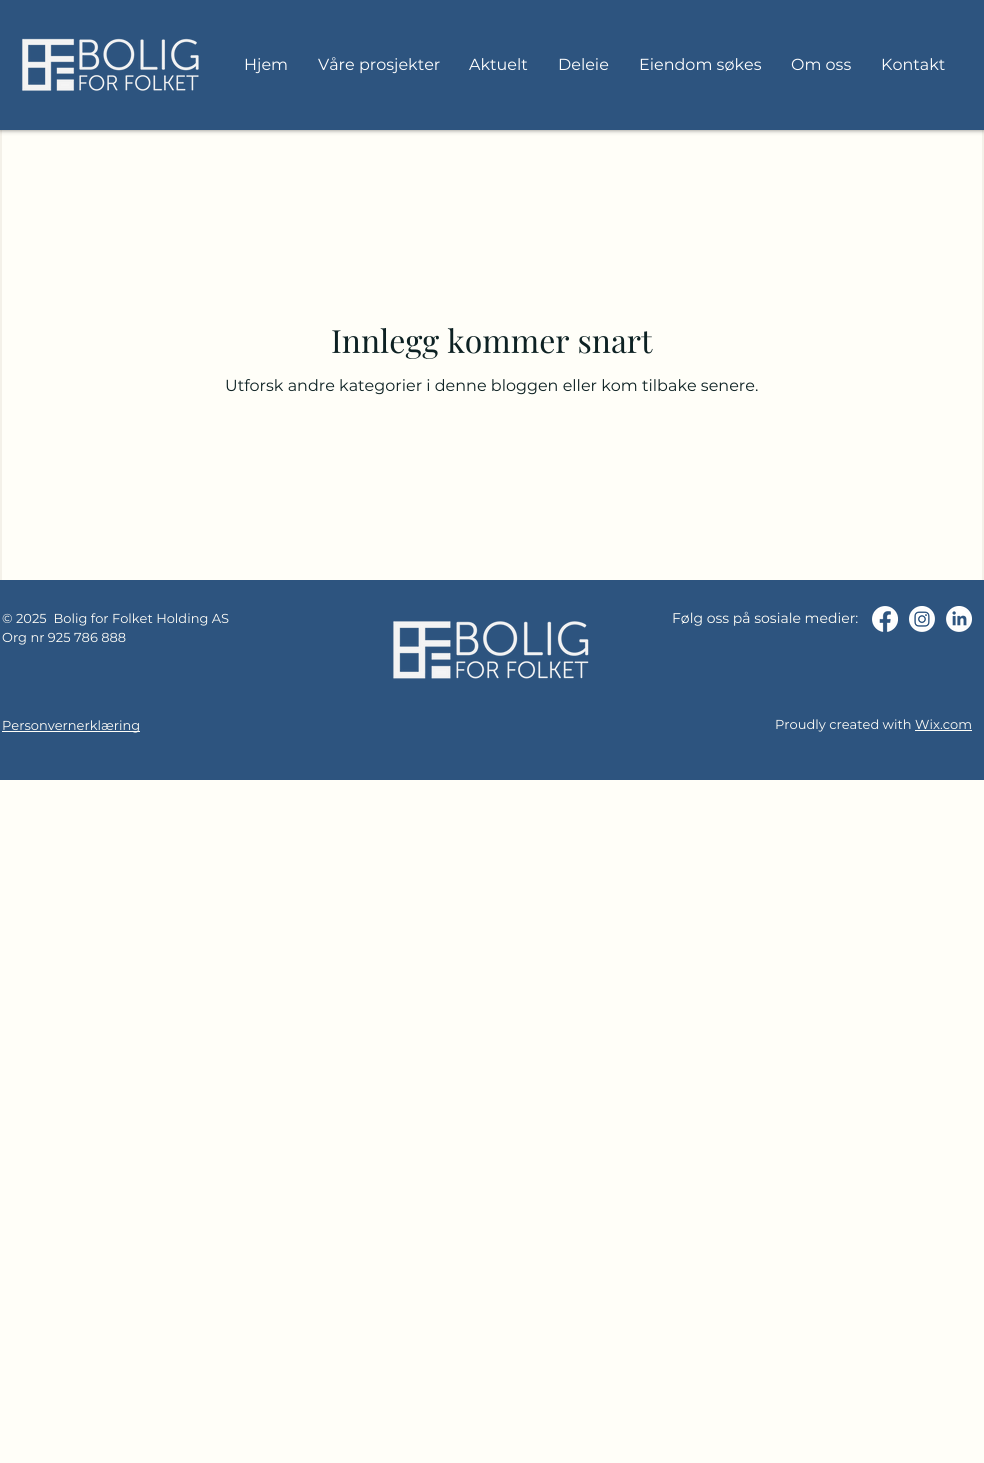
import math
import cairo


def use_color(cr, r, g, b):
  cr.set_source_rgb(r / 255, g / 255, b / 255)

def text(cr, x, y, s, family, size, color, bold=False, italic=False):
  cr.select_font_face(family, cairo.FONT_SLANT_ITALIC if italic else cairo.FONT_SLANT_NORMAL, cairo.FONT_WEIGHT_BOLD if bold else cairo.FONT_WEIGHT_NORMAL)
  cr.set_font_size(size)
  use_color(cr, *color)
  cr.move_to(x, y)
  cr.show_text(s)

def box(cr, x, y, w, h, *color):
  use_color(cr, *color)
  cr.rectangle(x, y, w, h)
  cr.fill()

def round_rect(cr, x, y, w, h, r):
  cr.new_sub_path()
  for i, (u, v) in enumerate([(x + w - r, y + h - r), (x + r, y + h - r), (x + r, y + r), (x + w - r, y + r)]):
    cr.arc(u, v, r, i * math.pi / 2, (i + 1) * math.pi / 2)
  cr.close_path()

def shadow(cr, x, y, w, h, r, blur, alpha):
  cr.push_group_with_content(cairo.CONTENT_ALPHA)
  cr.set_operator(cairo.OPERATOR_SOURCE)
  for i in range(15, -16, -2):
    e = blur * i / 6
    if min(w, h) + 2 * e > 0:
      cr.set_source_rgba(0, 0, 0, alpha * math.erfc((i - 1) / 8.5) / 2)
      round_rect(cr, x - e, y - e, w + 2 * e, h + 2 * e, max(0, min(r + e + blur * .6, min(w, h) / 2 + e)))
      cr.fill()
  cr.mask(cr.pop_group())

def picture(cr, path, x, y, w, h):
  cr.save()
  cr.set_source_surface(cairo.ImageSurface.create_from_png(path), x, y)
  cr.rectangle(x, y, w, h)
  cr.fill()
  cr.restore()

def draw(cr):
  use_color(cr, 255, 254, 248)
  cr.paint()
  box(cr, 0, 130, 984, 450, 244, 241, 233)
  box(cr, 2, 130, 980, 450, 255, 254, 248)
  use_color(cr, 0, 0, 0)
  shadow(cr, 0, 0, 984, 130, 0, 2.5, 0.5)
  box(cr, 0, 0, 984, 130, 45, 84, 127)
  picture(cr, "img_01.png", 22, 38, 177, 53)
  box(cr, 0, 580, 984, 200, 45, 84, 127)
  picture(cr, "img_02.png", 393, 621, 196, 58)
  picture(cr, "img_03.png", 872, 606, 26, 26)
  picture(cr, "img_04.png", 909, 606, 26, 26)
  picture(cr, "img_05.png", 946, 606, 26, 26)
  box(cr, 2, 731, 138, 1, 255, 254, 248)
  box(cr, 915, 730, 57, 1, 255, 254, 248)
  text(cr, 244, 70, "Hjem", "Montserrat", 16, (255, 255, 255))
  text(cr, 318, 70, "Våre prosjekter", "Montserrat", 16, (255, 255, 255))
  text(cr, 469, 70, "Aktuelt", "Montserrat", 16, (255, 255, 255))
  text(cr, 558, 70, "Deleie", "Montserrat", 16, (255, 255, 255))
  text(cr, 639, 70, "Eiendom søkes", "Montserrat", 16, (255, 255, 255))
  text(cr, 791, 70, "Om oss", "Montserrat", 16, (255, 255, 255))
  text(cr, 881, 70, "Kontakt", "Montserrat", 16, (255, 255, 255))
  text(cr, 331, 353, "Innlegg kommer snart", "Playfair Display", 32, (13, 33, 35))
  text(cr, 225, 391, "Utforsk andre kategorier i denne bloggen eller kom tilbake senere.", "Montserrat", 16, (13, 33, 35))
  text(cr, 2, 623, "© 2025  Bolig for Folket Holding AS", "Montserrat", 13, (255, 254, 248))
  text(cr, 2, 642, "Org nr 925 786 888", "Montserrat", 13, (255, 254, 248))
  text(cr, 672, 623, "Følg oss på sosiale medier:", "Montserrat", 14, (255, 254, 248))
  text(cr, 2, 730, "Personvernerklæring", "Montserrat", 13, (255, 254, 248))
  text(cr, 775, 729, "Proudly created with Wix.com", "Montserrat", 13, (255, 254, 248))


surface = cairo.ImageSurface(cairo.FORMAT_RGB24, 984, 1463)
cr = cairo.Context(surface)
options = cairo.FontOptions()
options.set_hint_metrics(cairo.HINT_METRICS_OFF)
options.set_hint_style(cairo.HINT_STYLE_NONE)
cr.set_font_options(options)
cr.set_miter_limit(4)
draw(cr)
surface.write_to_png("out.png")
